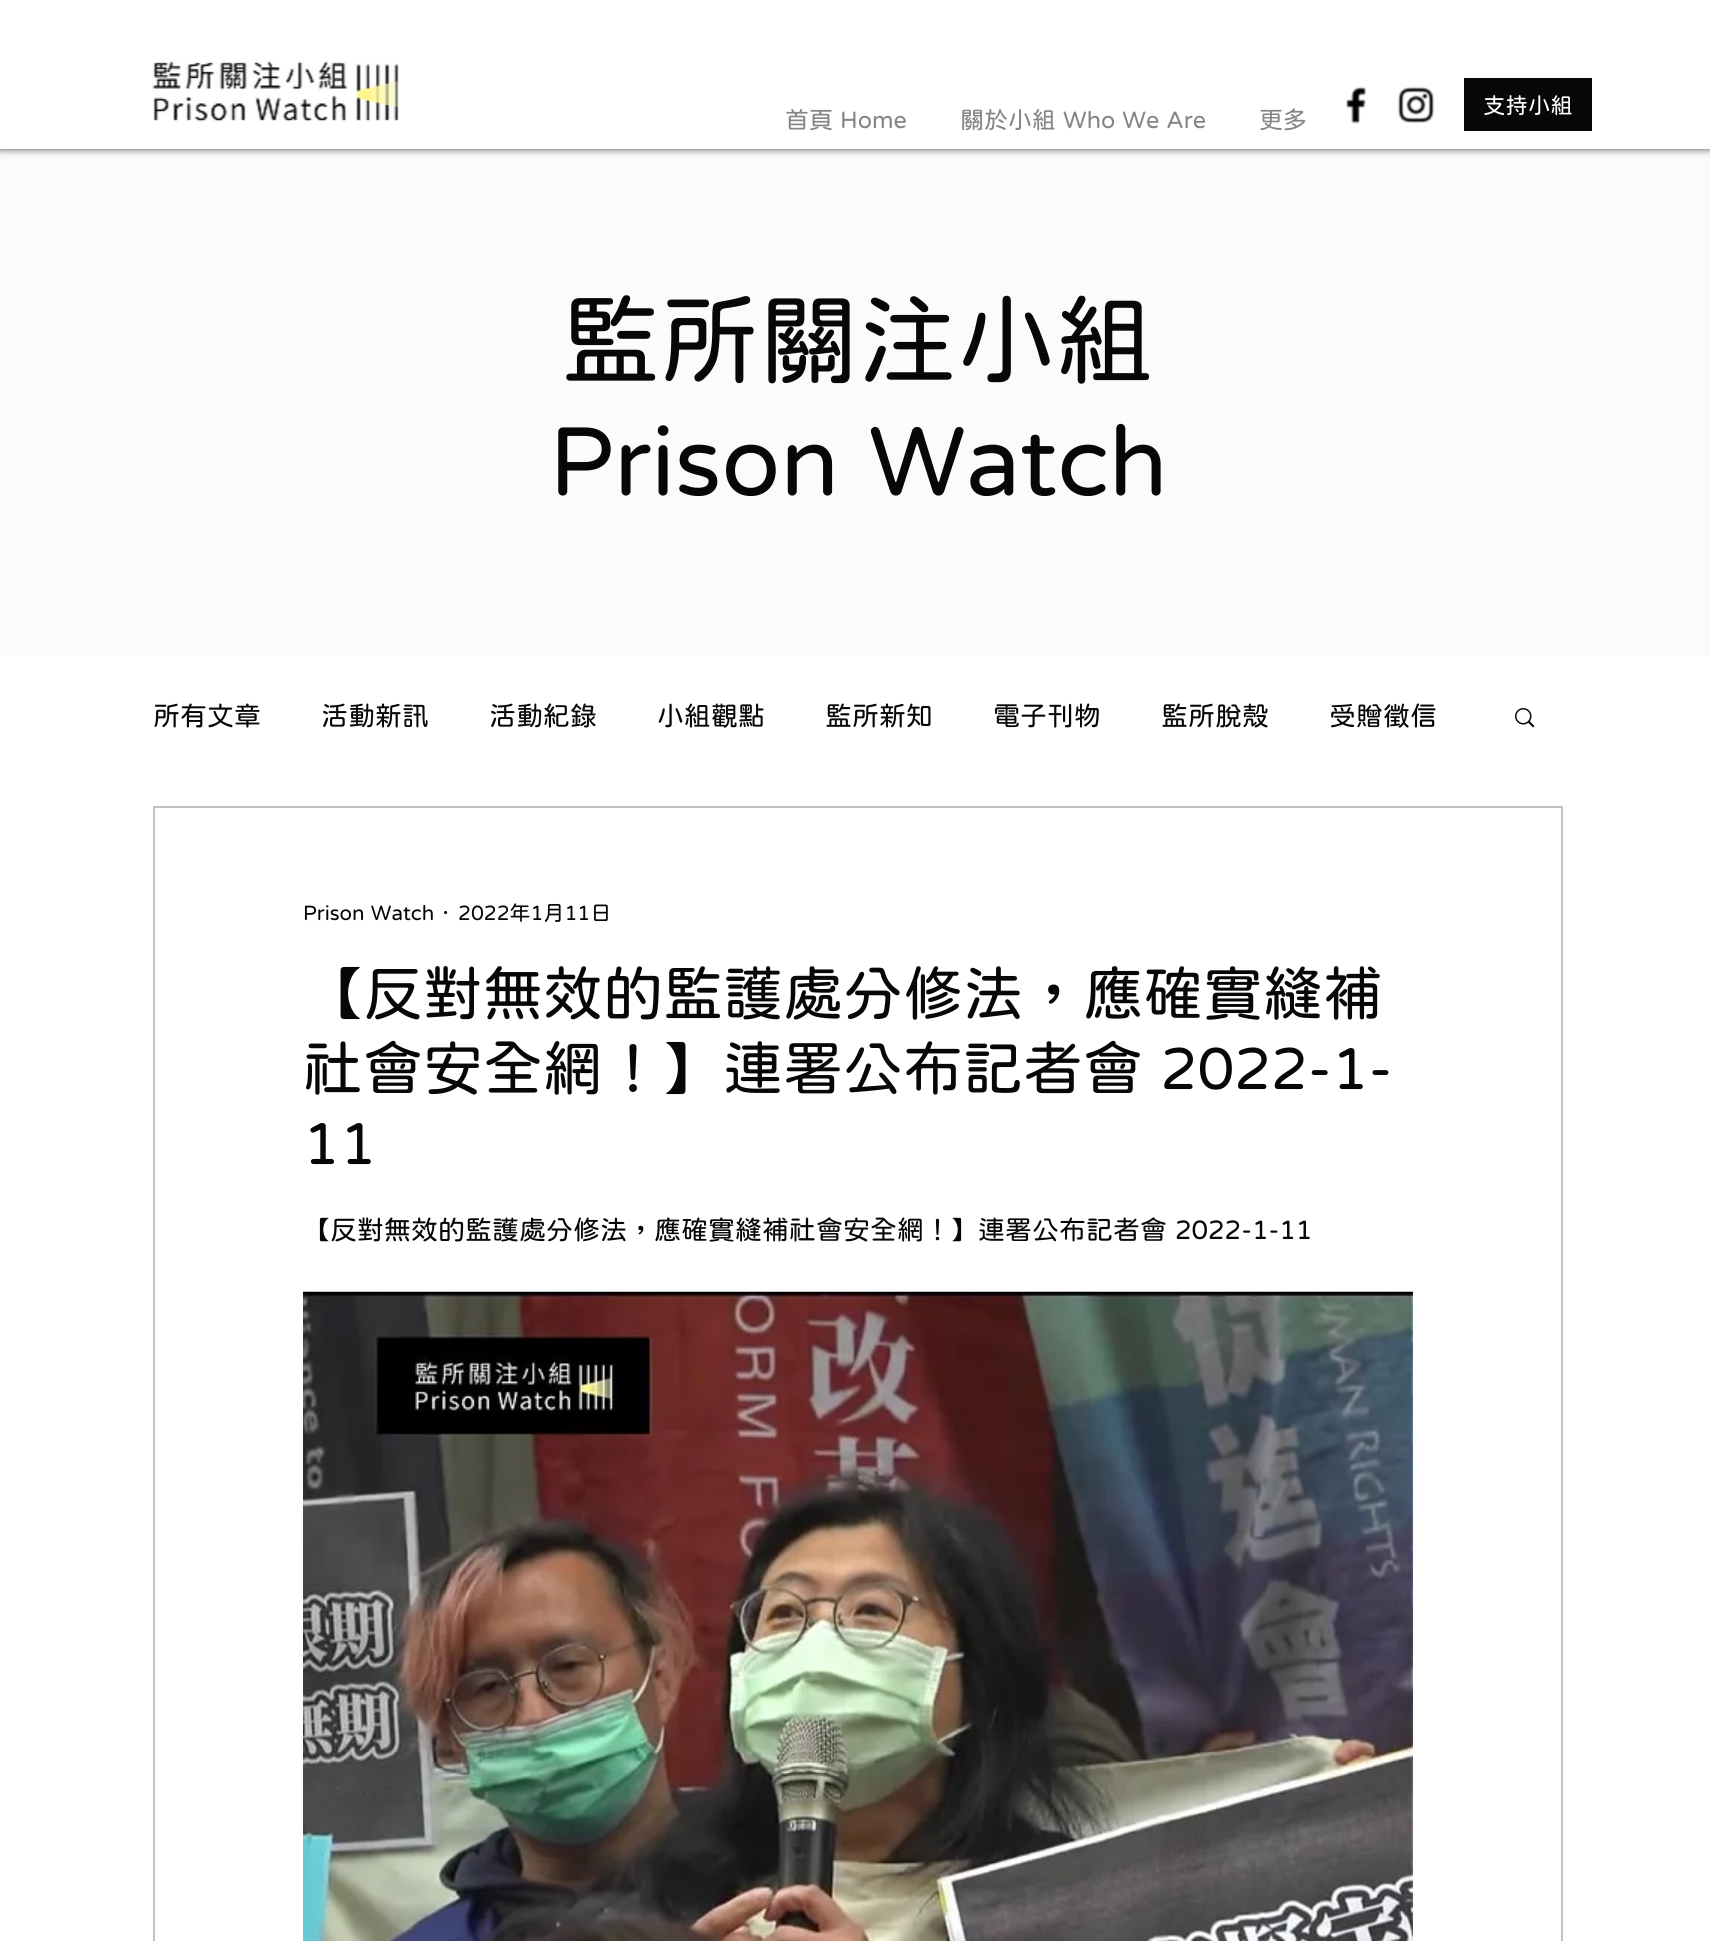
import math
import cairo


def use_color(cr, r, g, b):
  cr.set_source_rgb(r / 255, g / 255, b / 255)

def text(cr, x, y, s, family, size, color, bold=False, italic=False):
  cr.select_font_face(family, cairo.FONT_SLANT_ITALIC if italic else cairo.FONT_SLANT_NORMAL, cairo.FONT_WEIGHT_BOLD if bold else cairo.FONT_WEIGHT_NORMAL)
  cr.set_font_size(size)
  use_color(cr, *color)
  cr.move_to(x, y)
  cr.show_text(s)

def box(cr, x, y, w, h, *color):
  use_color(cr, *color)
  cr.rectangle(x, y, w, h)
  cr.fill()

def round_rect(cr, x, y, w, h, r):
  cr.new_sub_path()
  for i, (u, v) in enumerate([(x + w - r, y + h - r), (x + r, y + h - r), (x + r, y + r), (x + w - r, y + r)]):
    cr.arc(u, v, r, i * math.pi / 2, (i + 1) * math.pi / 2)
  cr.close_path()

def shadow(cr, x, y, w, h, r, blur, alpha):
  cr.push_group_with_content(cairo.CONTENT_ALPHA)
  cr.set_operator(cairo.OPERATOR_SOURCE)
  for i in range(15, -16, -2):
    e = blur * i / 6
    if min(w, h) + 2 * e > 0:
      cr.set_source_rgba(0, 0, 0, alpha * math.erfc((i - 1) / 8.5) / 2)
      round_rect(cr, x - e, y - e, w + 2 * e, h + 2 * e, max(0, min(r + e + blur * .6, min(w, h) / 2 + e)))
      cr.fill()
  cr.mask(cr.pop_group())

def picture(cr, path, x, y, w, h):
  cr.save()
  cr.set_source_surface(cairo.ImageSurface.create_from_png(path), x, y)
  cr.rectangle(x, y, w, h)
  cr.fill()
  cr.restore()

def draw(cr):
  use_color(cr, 255, 255, 255)
  cr.paint()
  box(cr, 0, 149, 1710, 507, 251, 251, 251)
  cr.save()
  cr.set_fill_rule(cairo.FILL_RULE_EVEN_ODD)
  cr.new_path()
  cr.move_to(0, 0)
  cr.line_to(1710, 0)
  cr.line_to(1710, 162)
  cr.line_to(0, 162)
  cr.close_path()
  cr.move_to(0, 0)
  cr.line_to(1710, 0)
  cr.line_to(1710, 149)
  cr.line_to(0, 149)
  cr.close_path()
  cr.clip()
  use_color(cr, 0, 0, 0)
  shadow(cr, 0, 0, 1710, 149, 0, 4, 0.7)
  cr.restore()
  cr.set_source_rgba(1, 1, 1, 0.6)
  cr.rectangle(0, 148, 1710, 1)
  cr.fill()
  picture(cr, "img_01.png", 152, 61, 247, 61)
  picture(cr, "img_02.png", 1346, 86, 21, 38)
  picture(cr, "img_03.png", 1397, 86, 38, 38)
  box(cr, 1464, 78, 128, 53, 7, 7, 7)
  picture(cr, "img_04.png", 1515, 708, 20, 20)
  cr.rectangle(154, 807, 1408, 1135)
  use_color(cr, 193, 193, 193)
  cr.stroke()
  picture(cr, "img_05.png", 303, 1291, 1110, 650)
  text(cr, 1483, 113, "支持小組", "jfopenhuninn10", 22.5, (255, 255, 255))
  text(cr, 785, 128, "首頁 Home", "jfopenhuninn10", 24, (133, 133, 133))
  text(cr, 960, 128, "關於小組 Who We Are", "jfopenhuninn10", 24, (133, 133, 133))
  text(cr, 1259, 128, "更多", "jfopenhuninn10", 24, (133, 133, 133))
  text(cr, 561, 374, "監所關注小組", "jfopenhuninn10", 99, (7, 7, 7))
  text(cr, 549, 495, "Prison Watch", "jfopenhuninn10", 99, (7, 7, 7))
  text(cr, 153, 725, "所有文章", "jfopenhuninn10", 27, (7, 7, 7))
  text(cr, 321, 725, "活動新訊", "jfopenhuninn10", 27, (7, 7, 7))
  text(cr, 489, 725, "活動紀錄", "jfopenhuninn10", 27, (7, 7, 7))
  text(cr, 657, 725, "小組觀點", "jfopenhuninn10", 27, (7, 7, 7))
  text(cr, 825, 725, "監所新知", "jfopenhuninn10", 27, (7, 7, 7))
  text(cr, 993, 725, "電子刊物", "jfopenhuninn10", 27, (7, 7, 7))
  text(cr, 1161, 725, "監所脫殼", "jfopenhuninn10", 27, (7, 7, 7))
  text(cr, 1329, 725, "受贈徵信", "jfopenhuninn10", 27, (7, 7, 7))
  text(cr, 303, 920, "Prison Watch", "jfopenhuninn10", 21, (7, 7, 7))
  text(cr, 443, 920, "·", "jfopenhuninn10", 21, (7, 7, 7))
  text(cr, 458, 920, "2022年1月11日", "jfopenhuninn10", 21, (7, 7, 7))
  text(cr, 303, 1014, "【反對無效的監護處分修法，應確實縫補", "jfopenhuninn10", 60, (7, 7, 7))
  text(cr, 303, 1089, "社會安全網！】連署公布記者會 2022-1-", "jfopenhuninn10", 60, (7, 7, 7))
  text(cr, 303, 1164, "11", "jfopenhuninn10", 60, (7, 7, 7))
  text(cr, 303, 1239, "【反對無效的監護處分修法，應確實縫補社會安全網！】連署公布記者會 2022-1-11", "jfopenhuninn10", 27, (7, 7, 7))


surface = cairo.ImageSurface(cairo.FORMAT_RGB24, 1710, 1941)
cr = cairo.Context(surface)
options = cairo.FontOptions()
options.set_hint_metrics(cairo.HINT_METRICS_OFF)
options.set_hint_style(cairo.HINT_STYLE_NONE)
cr.set_font_options(options)
cr.set_miter_limit(4)
draw(cr)
surface.write_to_png("out.png")
